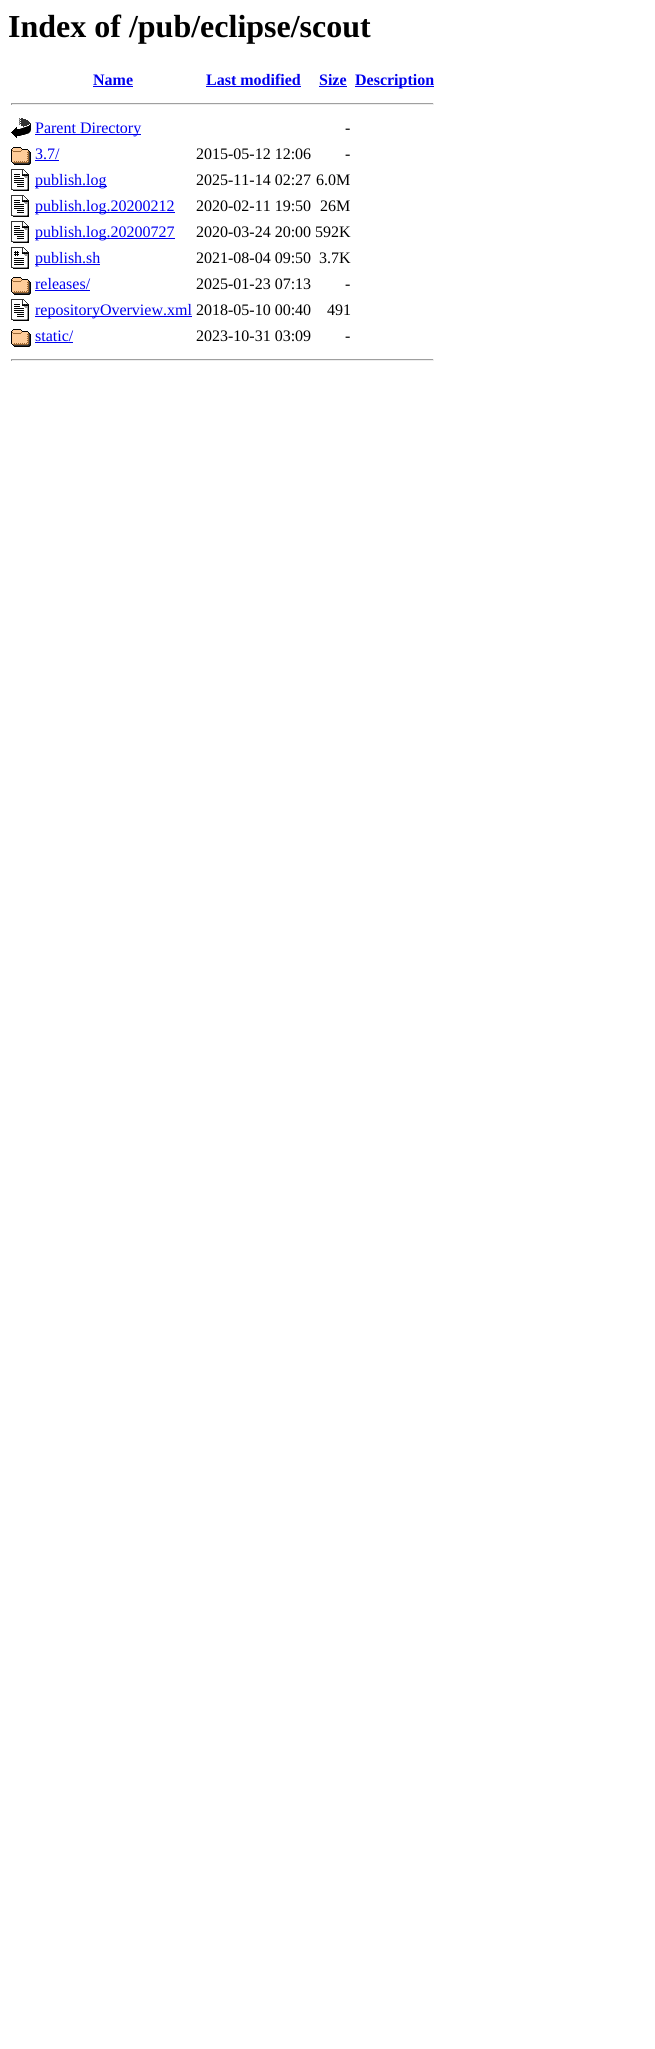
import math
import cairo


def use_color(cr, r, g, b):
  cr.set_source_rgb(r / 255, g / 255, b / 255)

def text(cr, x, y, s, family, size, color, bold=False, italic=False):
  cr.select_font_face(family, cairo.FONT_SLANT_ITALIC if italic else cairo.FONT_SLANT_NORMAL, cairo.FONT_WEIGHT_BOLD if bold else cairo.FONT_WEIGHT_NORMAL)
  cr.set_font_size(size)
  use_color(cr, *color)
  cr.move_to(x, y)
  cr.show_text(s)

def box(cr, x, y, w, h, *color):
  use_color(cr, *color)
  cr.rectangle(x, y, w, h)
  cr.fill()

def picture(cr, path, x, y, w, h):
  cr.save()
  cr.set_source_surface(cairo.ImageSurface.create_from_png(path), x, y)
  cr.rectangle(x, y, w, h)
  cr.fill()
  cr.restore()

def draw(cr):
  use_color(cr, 255, 255, 255)
  cr.paint()
  box(cr, 93, 86, 40, 1, 0, 0, 238)
  box(cr, 206, 86, 95, 1, 0, 0, 238)
  box(cr, 319, 86, 28, 1, 0, 0, 238)
  box(cr, 355, 86, 79, 1, 0, 0, 238)
  box(cr, 11, 103, 423, 1, 159, 159, 159)
  box(cr, 433, 103, 1, 2, 238, 238, 238)
  box(cr, 11, 104, 423, 1, 238, 238, 238)
  box(cr, 11, 103, 1, 2, 159, 159, 159)
  picture(cr, "img_01.png", 11, 118, 20, 20)
  box(cr, 35, 134, 106, 1, 0, 0, 238)
  picture(cr, "img_02.png", 11, 147, 20, 18)
  box(cr, 35, 160, 24, 1, 0, 0, 238)
  picture(cr, "img_03.png", 11, 169, 18, 22)
  box(cr, 35, 186, 72, 1, 0, 0, 238)
  picture(cr, "img_03.png", 11, 195, 18, 22)
  box(cr, 35, 212, 140, 1, 0, 0, 238)
  picture(cr, "img_03.png", 11, 221, 18, 22)
  box(cr, 35, 238, 140, 1, 0, 0, 238)
  picture(cr, "img_04.png", 11, 247, 18, 22)
  box(cr, 35, 264, 65, 1, 0, 0, 238)
  picture(cr, "img_02.png", 11, 277, 20, 18)
  box(cr, 35, 290, 55, 1, 0, 0, 238)
  picture(cr, "img_03.png", 11, 299, 18, 22)
  box(cr, 35, 316, 157, 1, 0, 0, 238)
  picture(cr, "img_02.png", 11, 329, 20, 18)
  box(cr, 35, 342, 38, 1, 0, 0, 238)
  box(cr, 11, 359, 423, 1, 159, 159, 159)
  box(cr, 433, 359, 1, 2, 238, 238, 238)
  box(cr, 11, 360, 423, 1, 238, 238, 238)
  box(cr, 11, 359, 1, 2, 159, 159, 159)
  text(cr, 8, 37, "Index of /pub/eclipse/scout", "Liberation Serif", 32, (0, 0, 0), bold=True)
  text(cr, 93, 85, "Name", "Liberation Serif", 16, (0, 0, 238), bold=True)
  text(cr, 206, 85, "Last modified", "Liberation Serif", 16, (0, 0, 238), bold=True)
  text(cr, 319, 85, "Size", "Liberation Serif", 16, (0, 0, 238), bold=True)
  text(cr, 355, 85, "Description", "Liberation Serif", 16, (0, 0, 238), bold=True)
  text(cr, 35, 133, "Parent Directory", "Liberation Serif", 16, (0, 0, 238))
  text(cr, 345, 133, "-", "Liberation Serif", 16, (0, 0, 0))
  text(cr, 35, 159, "3.7/", "Liberation Serif", 16, (0, 0, 238))
  text(cr, 196, 159, "2015-05-12 12:06", "Liberation Serif", 16, (0, 0, 0))
  text(cr, 345, 159, "-", "Liberation Serif", 16, (0, 0, 0))
  text(cr, 35, 185, "publish.log", "Liberation Serif", 16, (0, 0, 238))
  text(cr, 196, 185, "2025-11-14 02:27", "Liberation Serif", 16, (0, 0, 0))
  text(cr, 316, 185, "6.0M", "Liberation Serif", 16, (0, 0, 0))
  text(cr, 35, 211, "publish.log.20200212", "Liberation Serif", 16, (0, 0, 238))
  text(cr, 196, 211, "2020-02-11 19:50", "Liberation Serif", 16, (0, 0, 0))
  text(cr, 320, 211, "26M", "Liberation Serif", 16, (0, 0, 0))
  text(cr, 35, 237, "publish.log.20200727", "Liberation Serif", 16, (0, 0, 238))
  text(cr, 196, 237, "2020-03-24 20:00 592K", "Liberation Serif", 16, (0, 0, 0))
  text(cr, 35, 263, "publish.sh", "Liberation Serif", 16, (0, 0, 238))
  text(cr, 196, 263, "2021-08-04 09:50", "Liberation Serif", 16, (0, 0, 0))
  text(cr, 319, 263, "3.7K", "Liberation Serif", 16, (0, 0, 0))
  text(cr, 35, 289, "releases/", "Liberation Serif", 16, (0, 0, 238))
  text(cr, 196, 289, "2025-01-23 07:13", "Liberation Serif", 16, (0, 0, 0))
  text(cr, 345, 289, "-", "Liberation Serif", 16, (0, 0, 0))
  text(cr, 35, 315, "repositoryOverview.xml", "Liberation Serif", 16, (0, 0, 238))
  text(cr, 196, 315, "2018-05-10 00:40", "Liberation Serif", 16, (0, 0, 0))
  text(cr, 327, 315, "491", "Liberation Serif", 16, (0, 0, 0))
  text(cr, 35, 341, "static/", "Liberation Serif", 16, (0, 0, 238))
  text(cr, 196, 341, "2023-10-31 03:09", "Liberation Serif", 16, (0, 0, 0))
  text(cr, 345, 341, "-", "Liberation Serif", 16, (0, 0, 0))


surface = cairo.ImageSurface(cairo.FORMAT_RGB24, 655, 2049)
cr = cairo.Context(surface)
options = cairo.FontOptions()
options.set_hint_metrics(cairo.HINT_METRICS_OFF)
options.set_hint_style(cairo.HINT_STYLE_NONE)
cr.set_font_options(options)
cr.set_miter_limit(4)
draw(cr)
surface.write_to_png("out.png")
